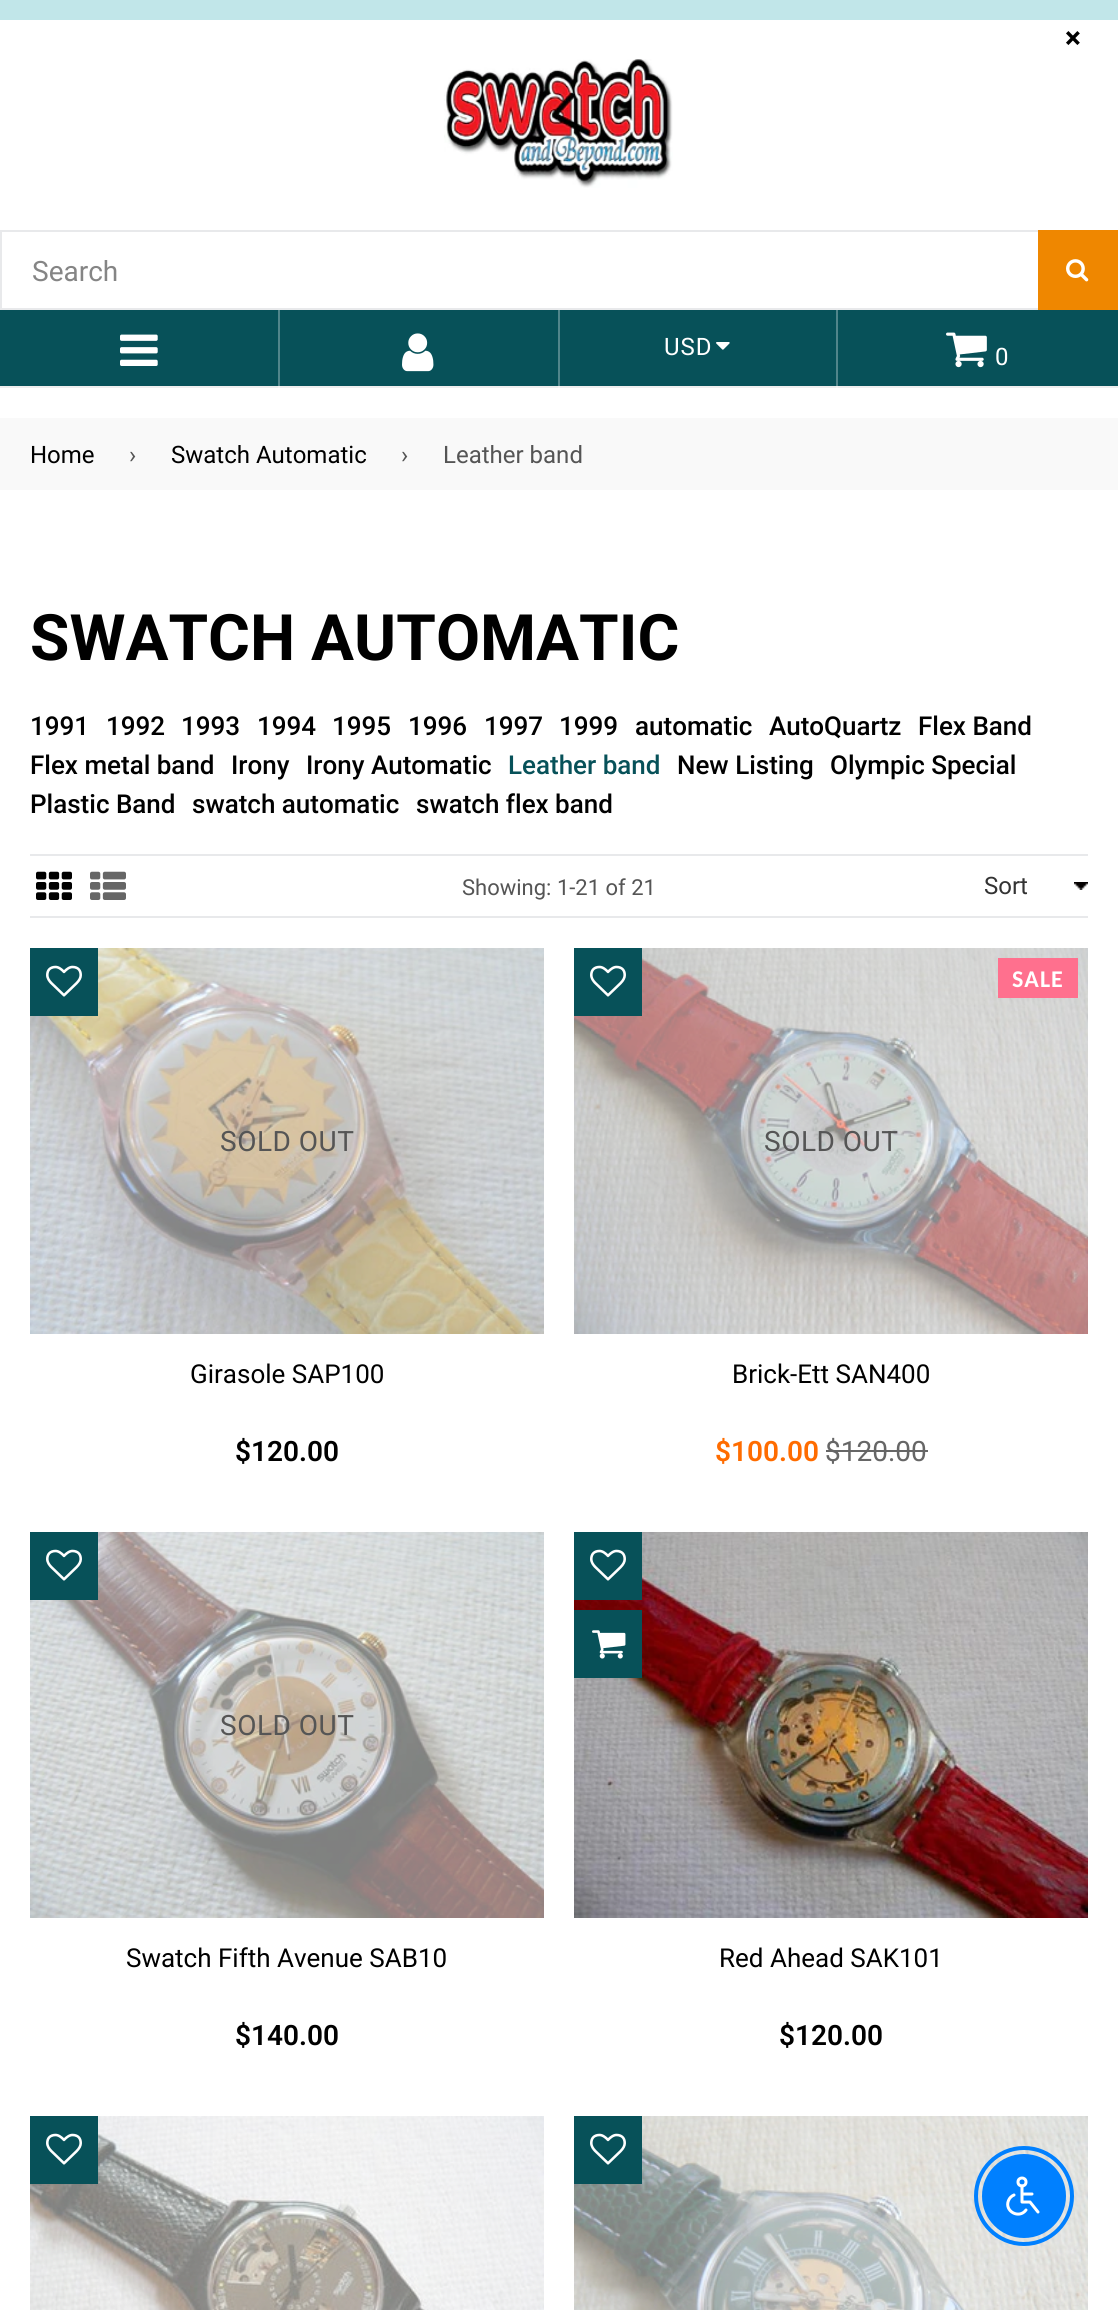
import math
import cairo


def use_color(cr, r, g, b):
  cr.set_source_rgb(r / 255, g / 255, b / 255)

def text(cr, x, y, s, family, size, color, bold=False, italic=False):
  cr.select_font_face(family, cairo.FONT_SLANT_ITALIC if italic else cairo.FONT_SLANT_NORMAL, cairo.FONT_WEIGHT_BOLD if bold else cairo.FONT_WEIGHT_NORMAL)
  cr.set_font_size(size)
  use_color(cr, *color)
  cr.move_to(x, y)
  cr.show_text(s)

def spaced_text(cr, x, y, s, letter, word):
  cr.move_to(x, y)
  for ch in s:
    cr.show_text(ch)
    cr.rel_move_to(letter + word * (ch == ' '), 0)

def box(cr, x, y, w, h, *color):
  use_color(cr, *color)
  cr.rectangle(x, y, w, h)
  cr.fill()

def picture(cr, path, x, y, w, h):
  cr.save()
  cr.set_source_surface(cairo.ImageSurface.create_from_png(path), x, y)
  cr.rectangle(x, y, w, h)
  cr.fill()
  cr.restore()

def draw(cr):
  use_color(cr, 255, 255, 255)
  cr.paint()
  box(cr, 0, 0, 1118, 20, 193, 230, 233)
  picture(cr, "img_01.png", 444, 59, 229, 129)
  box(cr, 0, 230, 1038, 2, 232, 233, 235)
  box(cr, 0, 308, 1038, 2, 232, 233, 235)
  box(cr, 0, 230, 2, 80, 232, 233, 235)
  box(cr, 1038, 230, 80, 80, 239, 135, 0)
  picture(cr, "img_02.png", 1066, 259, 23, 23)
  box(cr, 0, 310, 1118, 76, 7, 81, 89)
  box(cr, 836, 310, 2, 78, 81, 133, 139)
  box(cr, 558, 310, 2, 78, 81, 133, 139)
  box(cr, 278, 310, 2, 78, 81, 133, 139)
  box(cr, 0, 386, 1118, 2, 238, 238, 238)
  box(cr, 836, 386, 2, 2, 243, 243, 243)
  box(cr, 558, 386, 2, 2, 243, 243, 243)
  box(cr, 278, 386, 2, 2, 243, 243, 243)
  picture(cr, "img_03.png", 120, 334, 38, 32)
  picture(cr, "img_04.png", 402, 333, 32, 39)
  picture(cr, "img_05.png", 716, 342, 14, 8)
  picture(cr, "img_06.png", 946, 332, 41, 36)
  box(cr, 0, 418, 1118, 72, 249, 249, 249)
  box(cr, 30, 854, 1058, 2, 232, 233, 235)
  box(cr, 30, 916, 1058, 2, 232, 233, 235)
  picture(cr, "img_07.png", 36, 871, 36, 29)
  picture(cr, "img_08.png", 90, 871, 36, 29)
  picture(cr, "img_09.png", 1074, 882, 14, 8)
  picture(cr, "img_10.png", 30, 948, 514, 386)
  box(cr, 30, 948, 68, 68, 7, 81, 89)
  picture(cr, "img_11.png", 46, 965, 36, 32)
  picture(cr, "img_12.png", 574, 948, 514, 386)
  box(cr, 574, 948, 68, 68, 7, 81, 89)
  picture(cr, "img_11.png", 590, 965, 36, 32)
  box(cr, 998, 958, 80, 40, 255, 112, 142)
  box(cr, 826, 1450, 102, 2, 102, 102, 102)
  picture(cr, "img_13.png", 30, 1532, 514, 386)
  box(cr, 30, 1532, 68, 68, 7, 81, 89)
  picture(cr, "img_11.png", 46, 1549, 36, 32)
  picture(cr, "img_14.png", 574, 1532, 514, 386)
  box(cr, 574, 1532, 68, 68, 7, 81, 89)
  picture(cr, "img_11.png", 590, 1549, 36, 32)
  box(cr, 574, 1610, 68, 68, 7, 81, 89)
  picture(cr, "img_15.png", 592, 1630, 34, 29)
  picture(cr, "img_16.png", 30, 2116, 514, 194)
  box(cr, 30, 2116, 68, 68, 7, 81, 89)
  picture(cr, "img_11.png", 46, 2133, 36, 32)
  picture(cr, "img_17.png", 574, 2116, 514, 194)
  box(cr, 574, 2116, 68, 68, 7, 81, 89)
  picture(cr, "img_11.png", 590, 2133, 36, 32)
  cr.arc(1024, 2196, 48, 0, 2 * math.pi)
  use_color(cr, 0, 128, 255)
  cr.set_line_width(4)
  cr.stroke()
  cr.arc(1024, 2196, 41, 0, 2 * math.pi)
  cr.fill_preserve()
  cr.set_line_width(2)
  cr.stroke()
  cr.arc(1022, 2182, 4, 0, 2 * math.pi)
  use_color(cr, 255, 255, 255)
  cr.set_line_width(3)
  cr.stroke()
  cr.new_path()
  cr.move_to(1022, 2186)
  cr.line_to(1022, 2202)
  cr.line_to(1030, 2202)
  cr.line_to(1038, 2212)
  cr.move_to(1022, 2194)
  cr.line_to(1032, 2194)
  cr.move_to(1014, 2195)
  cr.curve_to(1011.5, 2196, 1009.5, 2198, 1008.5, 2200.5)
  cr.curve_to(1004, 2211, 1019, 2219.5, 1026, 2210)
  cr.set_line_cap(cairo.LINE_CAP_ROUND)
  cr.set_line_join(cairo.LINE_JOIN_ROUND)
  cr.stroke()
  text(cr, 1065, 48, "×", "Roboto", 30, (0, 0, 0), bold=True)
  text(cr, 32, 281, "Search", "Roboto", 28, (133, 133, 133))
  cr.set_font_size(24)
  use_color(cr, 255, 255, 255)
  spaced_text(cr, 664, 355, "USD", 1, 0)
  spaced_text(cr, 995, 365, "0", 2, 0)
  text(cr, 30, 463, "Home", "Roboto", 24, (0, 0, 0))
  text(cr, 129, 463, "›", "Roboto", 24, (85, 85, 85))
  text(cr, 171, 463, "Swatch Automatic", "Roboto", 24, (0, 0, 0))
  text(cr, 401, 463, "›", "Roboto", 24, (85, 85, 85))
  text(cr, 443, 463, "Leather band", "Roboto", 24, (85, 85, 85))
  text(cr, 30, 660, "SWATCH AUTOMATIC", "Roboto", 64, (0, 0, 0), bold=True)
  text(cr, 30, 735, "1991", "Roboto Medium", 26, (0, 0, 0))
  text(cr, 106, 735, "1992", "Roboto Medium", 26, (0, 0, 0))
  text(cr, 181, 735, "1993", "Roboto Medium", 26, (0, 0, 0))
  text(cr, 257, 735, "1994", "Roboto Medium", 26, (0, 0, 0))
  text(cr, 332, 735, "1995", "Roboto Medium", 26, (0, 0, 0))
  text(cr, 408, 735, "1996", "Roboto Medium", 26, (0, 0, 0))
  text(cr, 484, 735, "1997", "Roboto Medium", 26, (0, 0, 0))
  text(cr, 559, 735, "1999", "Roboto Medium", 26, (0, 0, 0))
  text(cr, 635, 735, "automatic", "Roboto Medium", 26, (0, 0, 0))
  text(cr, 769, 735, "AutoQuartz", "Roboto Medium", 26, (0, 0, 0))
  text(cr, 918, 735, "Flex Band", "Roboto Medium", 26, (0, 0, 0))
  text(cr, 30, 774, "Flex metal band", "Roboto Medium", 26, (0, 0, 0))
  text(cr, 231, 774, "Irony", "Roboto Medium", 26, (0, 0, 0))
  text(cr, 306, 774, "Irony Automatic", "Roboto Medium", 26, (0, 0, 0))
  text(cr, 508, 774, "Leather band", "Roboto Medium", 26, (7, 81, 89))
  text(cr, 677, 774, "New Listing", "Roboto Medium", 26, (0, 0, 0))
  text(cr, 830, 774, "Olympic Special", "Roboto Medium", 26, (0, 0, 0))
  text(cr, 30, 813, "Plastic Band", "Roboto Medium", 26, (0, 0, 0))
  text(cr, 192, 813, "swatch automatic", "Roboto Medium", 26, (0, 0, 0))
  text(cr, 416, 813, "swatch flex band", "Roboto Medium", 26, (0, 0, 0))
  text(cr, 462, 895, "Showing: 1-21 of 21", "Roboto", 22, (85, 85, 85))
  text(cr, 984, 894, "Sort", "Roboto", 24, (51, 51, 51))
  cr.set_font_size(28)
  use_color(cr, 85, 85, 85)
  spaced_text(cr, 220, 1151, "SOLD OUT", 0.5, 0)
  text(cr, 190, 1383, "Girasole SAP100", "Roboto", 26, (0, 0, 0))
  text(cr, 235, 1461, "$120.00", "Roboto SemiBold", 28, (0, 0, 0))
  cr.select_font_face("Carlito", cairo.FONT_SLANT_NORMAL, cairo.FONT_WEIGHT_BOLD)
  cr.set_font_size(24)
  use_color(cr, 255, 255, 255)
  spaced_text(cr, 1012, 987, "SALE", 1, 0)
  cr.select_font_face("Roboto")
  cr.set_font_size(28)
  use_color(cr, 85, 85, 85)
  spaced_text(cr, 764, 1151, "SOLD OUT", 0.5, 0)
  text(cr, 732, 1383, "Brick-Ett SAN400", "Roboto", 26, (0, 0, 0))
  text(cr, 715, 1461, "$100.00", "Roboto SemiBold", 28, (255, 108, 0))
  text(cr, 825, 1461, "$120.00", "Roboto", 28, (102, 102, 102))
  use_color(cr, 85, 85, 85)
  spaced_text(cr, 220, 1735, "SOLD OUT", 0.5, 0)
  text(cr, 126, 1967, "Swatch Fifth Avenue SAB10", "Roboto", 26, (0, 0, 0))
  text(cr, 235, 2045, "$140.00", "Roboto SemiBold", 28, (0, 0, 0))
  text(cr, 719, 1967, "Red Ahead SAK101", "Roboto", 26, (0, 0, 0))
  text(cr, 779, 2045, "$120.00", "Roboto SemiBold", 28, (0, 0, 0))


surface = cairo.ImageSurface(cairo.FORMAT_RGB24, 1118, 2310)
cr = cairo.Context(surface)
options = cairo.FontOptions()
options.set_hint_metrics(cairo.HINT_METRICS_OFF)
options.set_hint_style(cairo.HINT_STYLE_NONE)
cr.set_font_options(options)
cr.set_miter_limit(4)
draw(cr)
surface.write_to_png("out.png")
